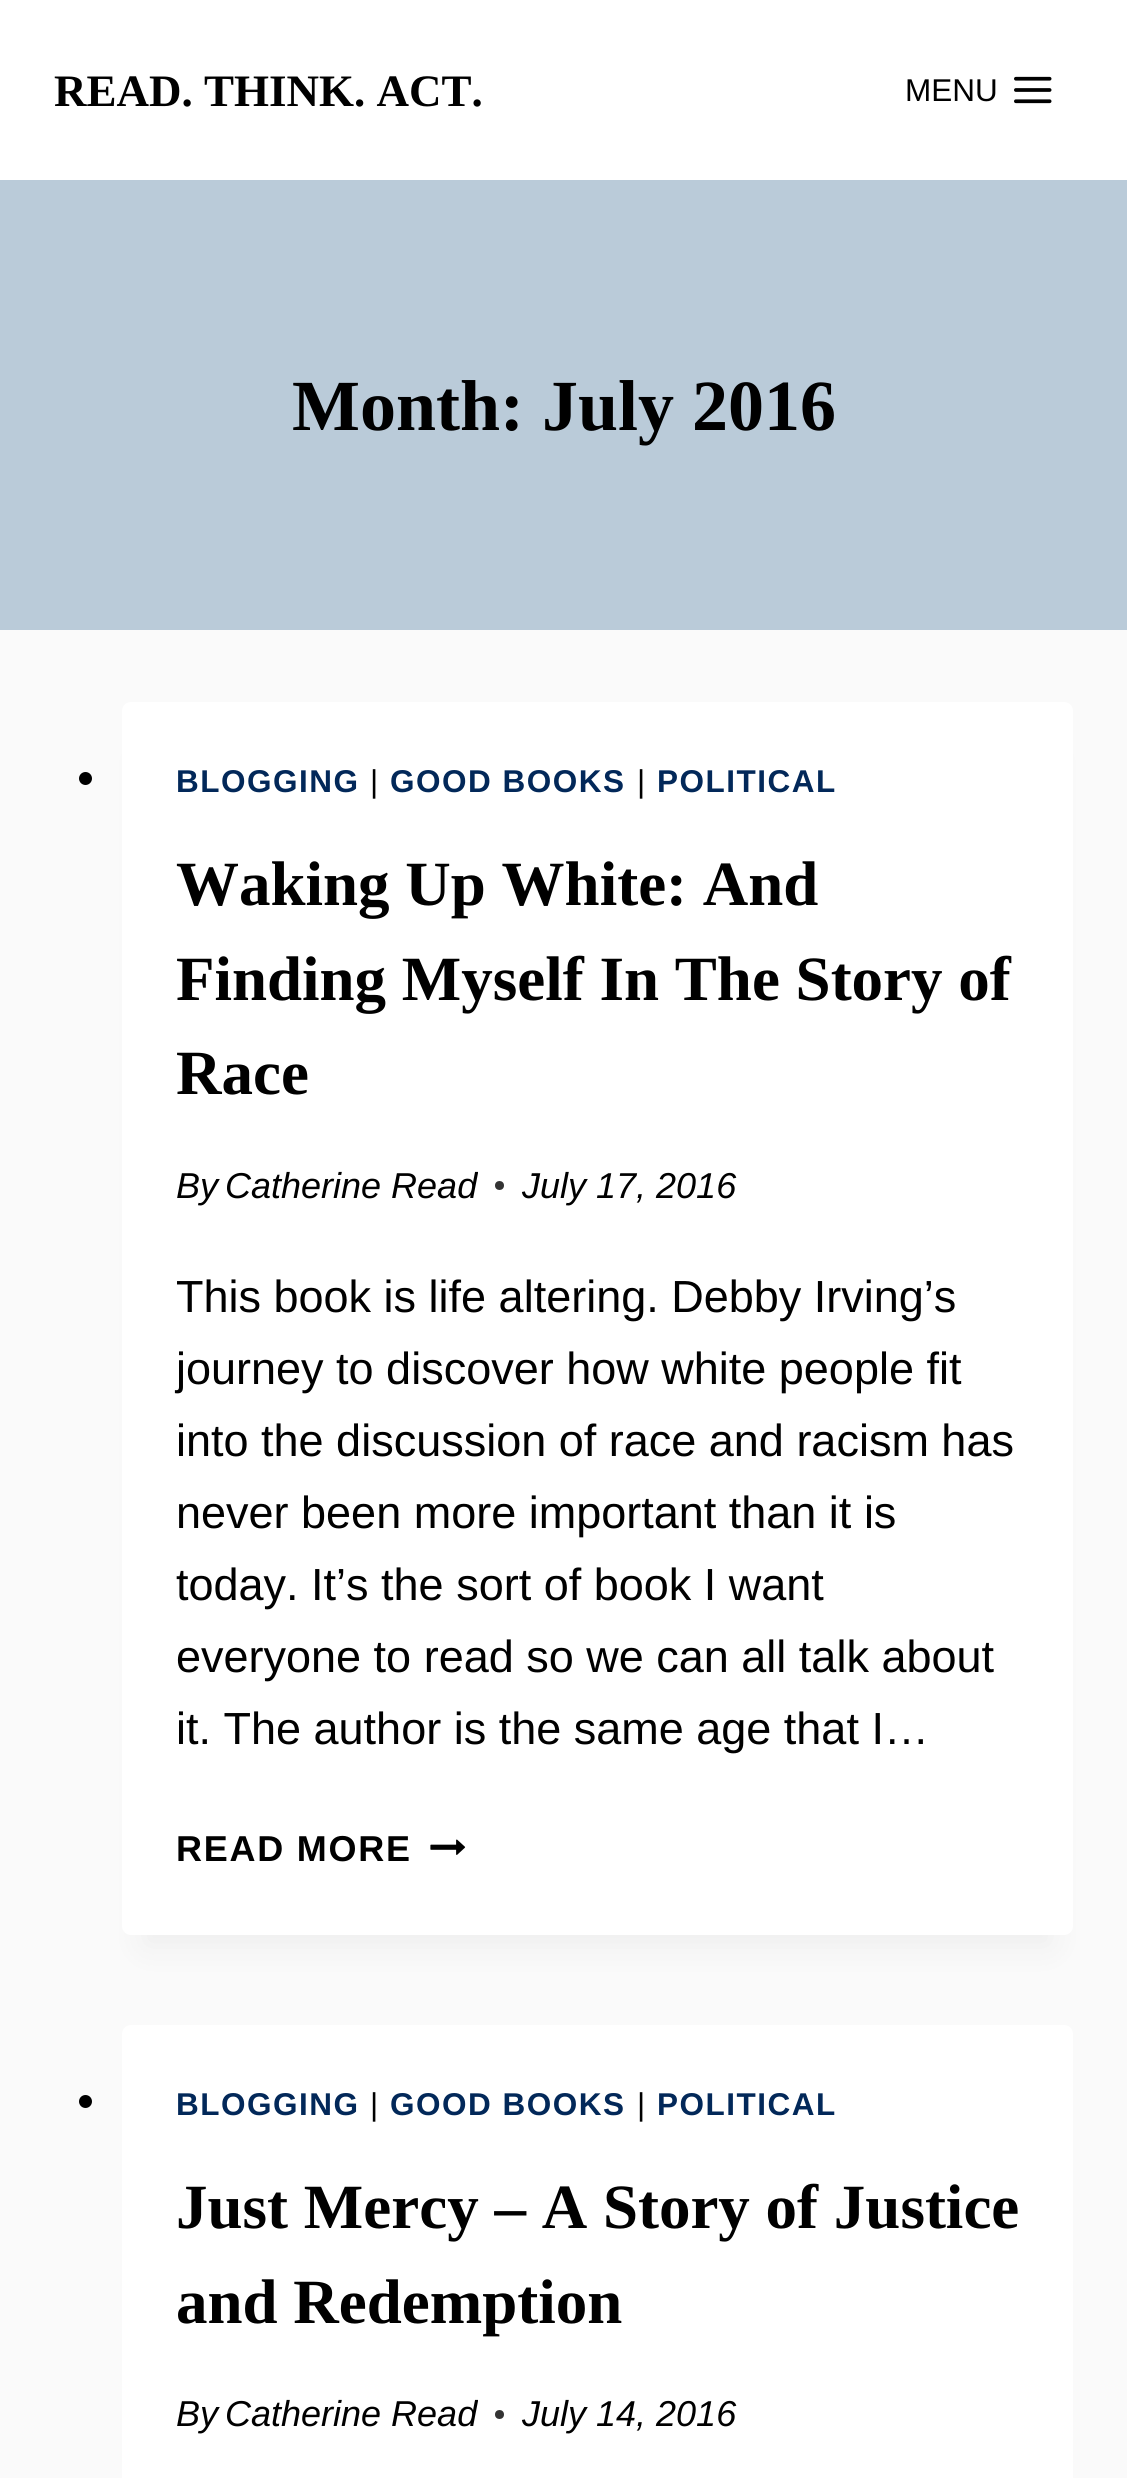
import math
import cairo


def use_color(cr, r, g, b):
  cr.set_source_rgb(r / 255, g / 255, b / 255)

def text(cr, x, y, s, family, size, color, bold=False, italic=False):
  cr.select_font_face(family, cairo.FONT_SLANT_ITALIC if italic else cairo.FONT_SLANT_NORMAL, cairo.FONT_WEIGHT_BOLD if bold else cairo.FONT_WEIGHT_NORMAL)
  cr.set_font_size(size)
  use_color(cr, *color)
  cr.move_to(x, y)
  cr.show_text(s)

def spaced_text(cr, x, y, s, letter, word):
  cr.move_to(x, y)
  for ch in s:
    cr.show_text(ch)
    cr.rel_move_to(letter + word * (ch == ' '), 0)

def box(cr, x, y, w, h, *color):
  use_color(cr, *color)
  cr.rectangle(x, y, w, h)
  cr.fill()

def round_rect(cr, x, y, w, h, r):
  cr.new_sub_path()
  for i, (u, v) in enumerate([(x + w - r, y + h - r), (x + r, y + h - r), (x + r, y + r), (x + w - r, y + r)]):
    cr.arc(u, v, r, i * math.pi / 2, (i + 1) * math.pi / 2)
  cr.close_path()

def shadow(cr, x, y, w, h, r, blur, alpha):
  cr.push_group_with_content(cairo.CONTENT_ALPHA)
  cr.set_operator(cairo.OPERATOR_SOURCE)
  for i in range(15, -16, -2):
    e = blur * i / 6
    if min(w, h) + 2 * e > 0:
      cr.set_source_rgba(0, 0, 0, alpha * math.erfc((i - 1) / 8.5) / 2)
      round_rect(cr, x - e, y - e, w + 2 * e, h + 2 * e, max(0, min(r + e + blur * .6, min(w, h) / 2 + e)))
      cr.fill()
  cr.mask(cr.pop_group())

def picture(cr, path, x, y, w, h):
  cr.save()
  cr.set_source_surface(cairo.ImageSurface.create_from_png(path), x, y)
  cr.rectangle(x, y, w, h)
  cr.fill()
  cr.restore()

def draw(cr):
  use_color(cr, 250, 250, 250)
  cr.paint()
  box(cr, 0, 0, 1127, 180, 255, 255, 255)
  picture(cr, "img_01.png", 1014, 76, 38, 28)
  box(cr, 0, 180, 1127, 450, 186, 203, 217)
  use_color(cr, 0, 0, 0)
  cr.arc(85.5, 778.5, 6.5, 0, 2 * math.pi)
  cr.fill()
  use_color(cr, 0, 0, 0)
  shadow(cr, 144, 758, 907, 1188, 0, 17, 0.05)
  use_color(cr, 255, 255, 255)
  round_rect(cr, 122, 702, 951, 1233, 9)
  cr.fill()
  use_color(cr, 51, 51, 51)
  cr.arc(499.5, 1185.5, 4.5, 0, 2 * math.pi)
  cr.fill()
  picture(cr, "img_02.png", 430, 1839, 36, 16)
  use_color(cr, 0, 0, 0)
  cr.arc(85.5, 2101.5, 6.5, 0, 2 * math.pi)
  cr.fill()
  use_color(cr, 255, 255, 255)
  round_rect(cr, 122, 2025, 951, 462, 9)
  cr.fill()
  use_color(cr, 51, 51, 51)
  cr.arc(499.5, 2414.5, 4.5, 0, 2 * math.pi)
  cr.fill()
  text(cr, 54, 106, "READ. THINK. ACT.", "Liberation Serif", 45, (0, 0, 0), bold=True)
  text(cr, 905, 101, "MENU", "Liberation Sans", 31.5, (0, 0, 0))
  text(cr, 292, 430, "Month: July 2016", "Liberation Serif", 72, (0, 0, 0), bold=True)
  cr.select_font_face("Liberation Sans", cairo.FONT_SLANT_NORMAL, cairo.FONT_WEIGHT_BOLD)
  cr.set_font_size(31.5)
  use_color(cr, 2, 40, 89)
  spaced_text(cr, 176, 792, "BLOGGING", 1.5, 0)
  cr.select_font_face("Liberation Sans")
  use_color(cr, 0, 0, 0)
  spaced_text(cr, 370, 792, "|", 1.5, 0)
  cr.select_font_face("Liberation Sans", cairo.FONT_SLANT_NORMAL, cairo.FONT_WEIGHT_BOLD)
  use_color(cr, 2, 40, 89)
  spaced_text(cr, 390, 792, "GOOD BOOKS", 1.5, 0)
  cr.select_font_face("Liberation Sans")
  use_color(cr, 0, 0, 0)
  spaced_text(cr, 637, 792, "|", 1.5, 0)
  cr.select_font_face("Liberation Sans", cairo.FONT_SLANT_NORMAL, cairo.FONT_WEIGHT_BOLD)
  use_color(cr, 2, 40, 89)
  spaced_text(cr, 657, 792, "POLITICAL", 1.5, 0)
  text(cr, 176, 905, "Waking Up White: And", "Liberation Serif", 63, (0, 0, 0), bold=True)
  text(cr, 176, 1000, "Finding Myself In The Story of", "Liberation Serif", 63, (0, 0, 0), bold=True)
  text(cr, 176, 1094, "Race", "Liberation Serif", 63, (0, 0, 0), bold=True)
  text(cr, 176, 1198, "By", "Liberation Sans", 36, (0, 0, 0), italic=True)
  text(cr, 225, 1198, "Catherine Read", "Liberation Sans", 36, (0, 0, 0), italic=True)
  text(cr, 522, 1198, "July 17, 2016", "Liberation Sans", 36, (0, 0, 0), italic=True)
  text(cr, 176, 1312, "This book is life altering. Debby Irving’s", "Liberation Sans", 45, (0, 0, 0))
  text(cr, 176, 1384, "journey to discover how white people fit", "Liberation Sans", 45, (0, 0, 0))
  text(cr, 176, 1456, "into the discussion of race and racism has", "Liberation Sans", 45, (0, 0, 0))
  text(cr, 176, 1528, "never been more important than it is", "Liberation Sans", 45, (0, 0, 0))
  text(cr, 176, 1600, "today. It’s the sort of book I want", "Liberation Sans", 45, (0, 0, 0))
  text(cr, 176, 1672, "everyone to read so we can all talk about", "Liberation Sans", 45, (0, 0, 0))
  text(cr, 176, 1744, "it. The author is the same age that I…", "Liberation Sans", 45, (0, 0, 0))
  cr.select_font_face("Liberation Sans", cairo.FONT_SLANT_NORMAL, cairo.FONT_WEIGHT_BOLD)
  cr.set_font_size(36)
  spaced_text(cr, 176, 1861, "READ MORE", 1.75, 0)
  cr.set_font_size(31.5)
  use_color(cr, 2, 40, 89)
  spaced_text(cr, 176, 2115, "BLOGGING", 1.5, 0)
  cr.select_font_face("Liberation Sans")
  use_color(cr, 0, 0, 0)
  spaced_text(cr, 370, 2115, "|", 1.5, 0)
  cr.select_font_face("Liberation Sans", cairo.FONT_SLANT_NORMAL, cairo.FONT_WEIGHT_BOLD)
  use_color(cr, 2, 40, 89)
  spaced_text(cr, 390, 2115, "GOOD BOOKS", 1.5, 0)
  cr.select_font_face("Liberation Sans")
  use_color(cr, 0, 0, 0)
  spaced_text(cr, 637, 2115, "|", 1.5, 0)
  cr.select_font_face("Liberation Sans", cairo.FONT_SLANT_NORMAL, cairo.FONT_WEIGHT_BOLD)
  use_color(cr, 2, 40, 89)
  spaced_text(cr, 657, 2115, "POLITICAL", 1.5, 0)
  text(cr, 176, 2228, "Just Mercy – A Story of Justice", "Liberation Serif", 63, (0, 0, 0), bold=True)
  text(cr, 176, 2323, "and Redemption", "Liberation Serif", 63, (0, 0, 0), bold=True)
  text(cr, 176, 2426, "By", "Liberation Sans", 36, (0, 0, 0), italic=True)
  text(cr, 225, 2426, "Catherine Read", "Liberation Sans", 36, (0, 0, 0), italic=True)
  text(cr, 522, 2426, "July 14, 2016", "Liberation Sans", 36, (0, 0, 0), italic=True)


surface = cairo.ImageSurface(cairo.FORMAT_RGB24, 1127, 2478)
cr = cairo.Context(surface)
options = cairo.FontOptions()
options.set_hint_metrics(cairo.HINT_METRICS_OFF)
options.set_hint_style(cairo.HINT_STYLE_NONE)
cr.set_font_options(options)
cr.set_miter_limit(4)
draw(cr)
surface.write_to_png("out.png")
